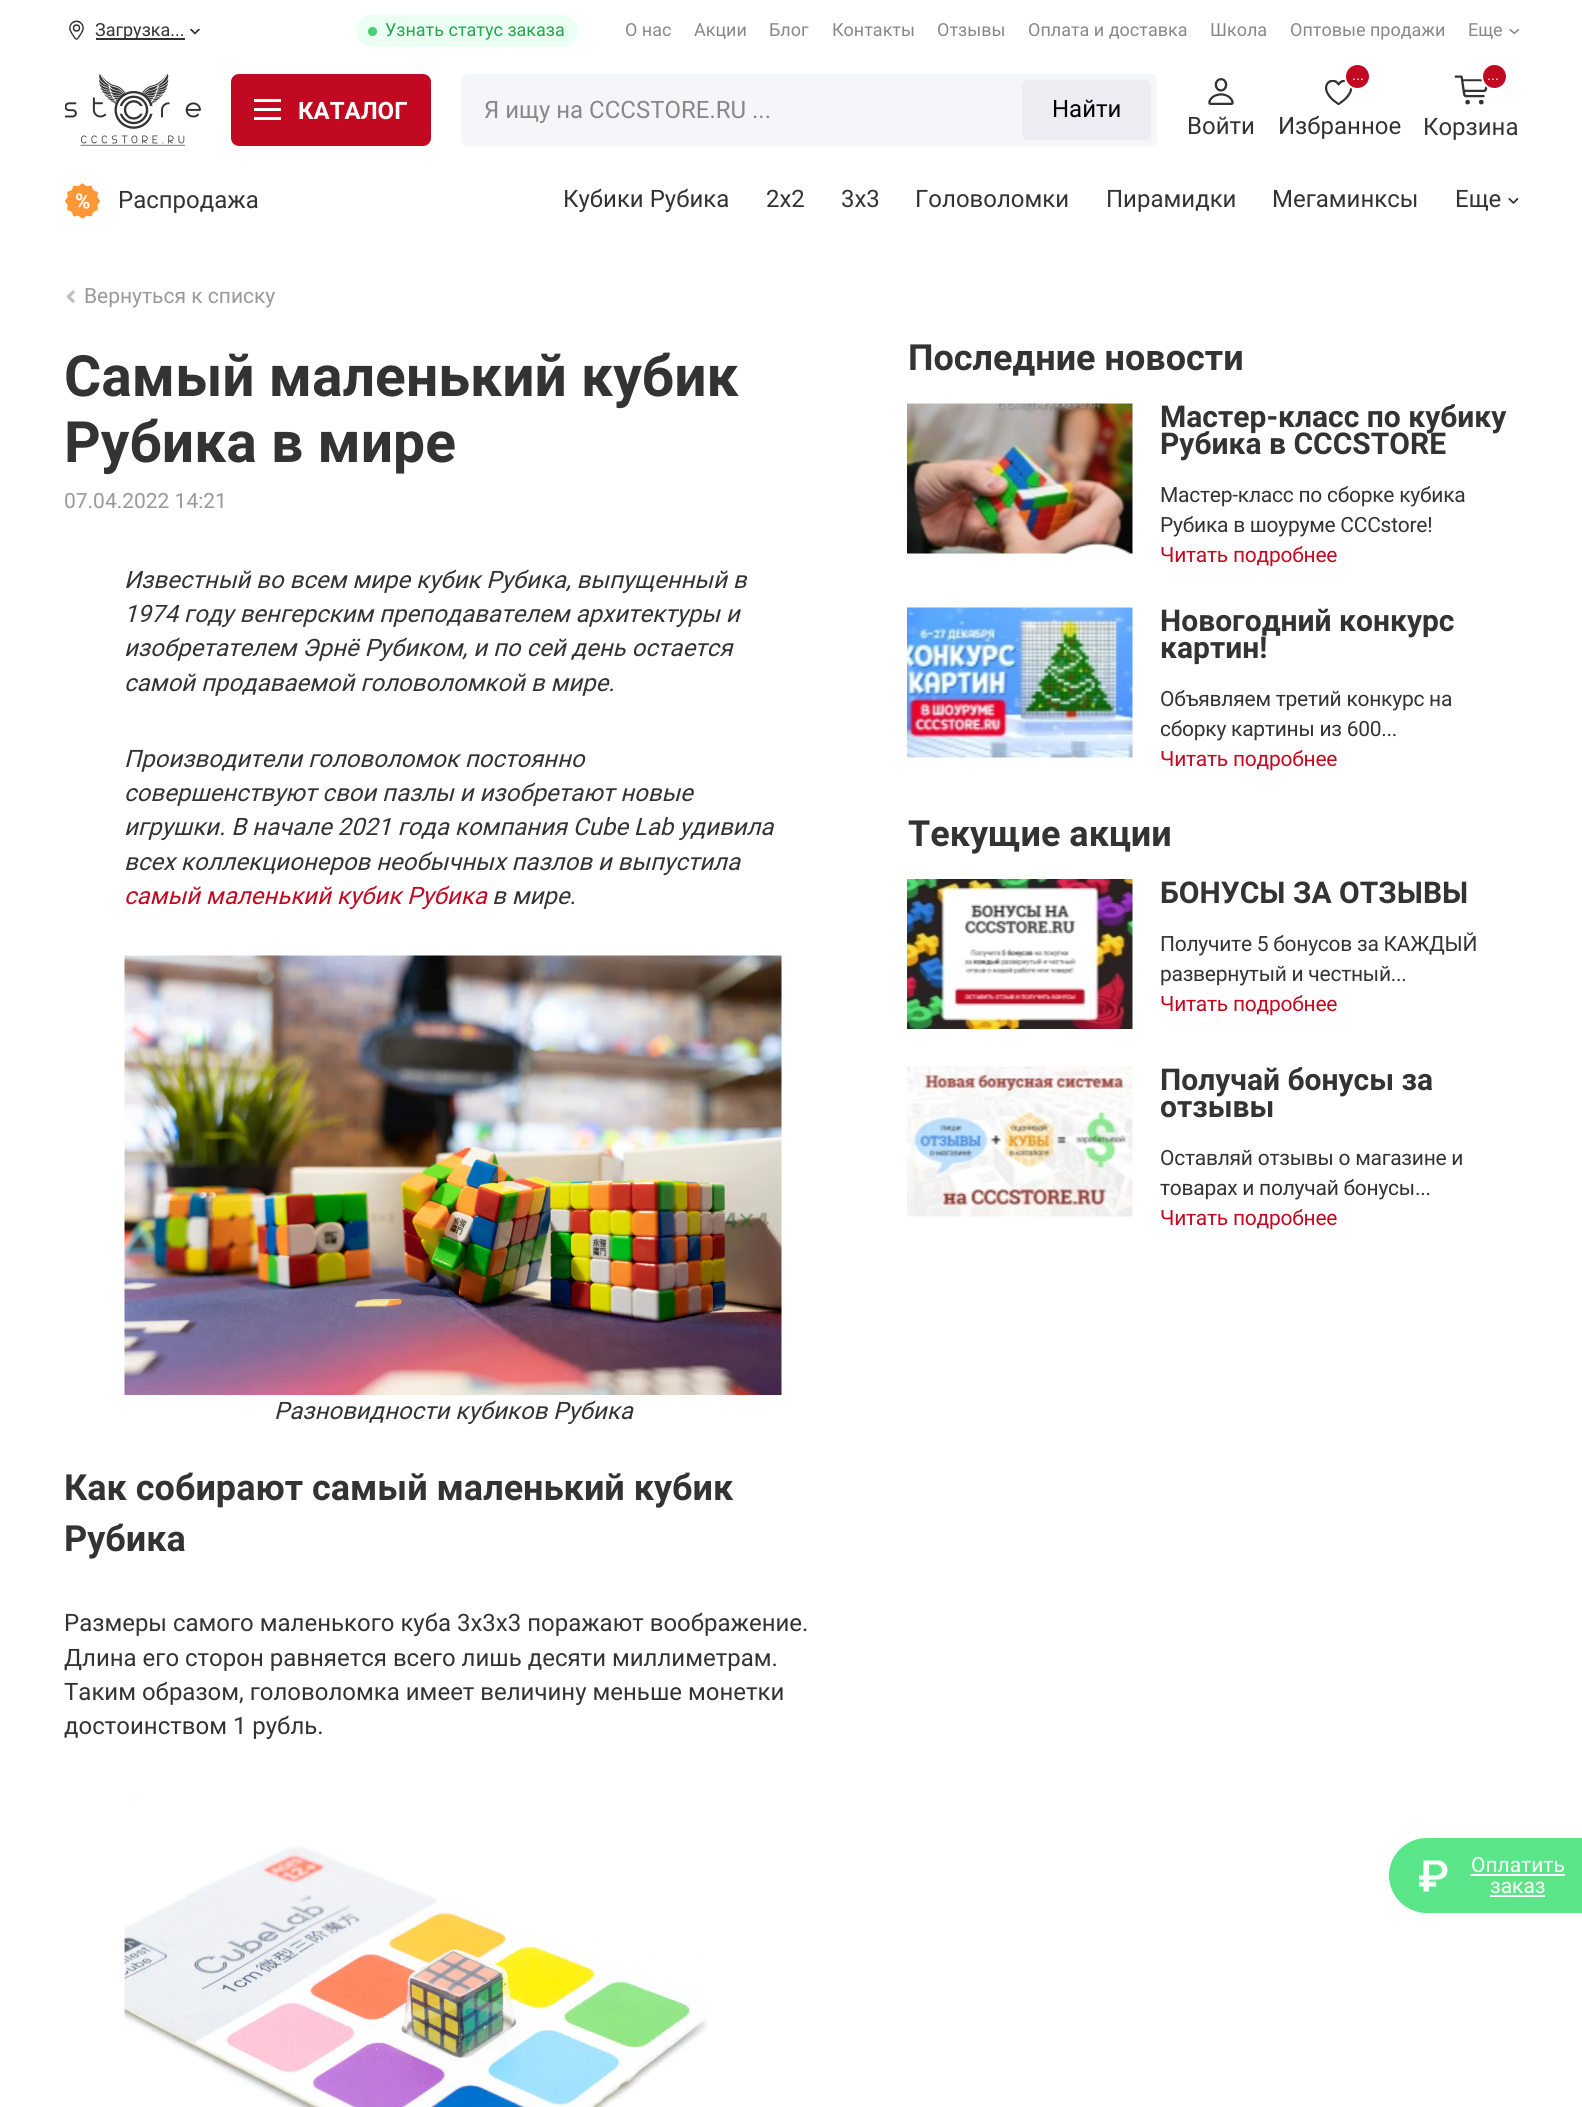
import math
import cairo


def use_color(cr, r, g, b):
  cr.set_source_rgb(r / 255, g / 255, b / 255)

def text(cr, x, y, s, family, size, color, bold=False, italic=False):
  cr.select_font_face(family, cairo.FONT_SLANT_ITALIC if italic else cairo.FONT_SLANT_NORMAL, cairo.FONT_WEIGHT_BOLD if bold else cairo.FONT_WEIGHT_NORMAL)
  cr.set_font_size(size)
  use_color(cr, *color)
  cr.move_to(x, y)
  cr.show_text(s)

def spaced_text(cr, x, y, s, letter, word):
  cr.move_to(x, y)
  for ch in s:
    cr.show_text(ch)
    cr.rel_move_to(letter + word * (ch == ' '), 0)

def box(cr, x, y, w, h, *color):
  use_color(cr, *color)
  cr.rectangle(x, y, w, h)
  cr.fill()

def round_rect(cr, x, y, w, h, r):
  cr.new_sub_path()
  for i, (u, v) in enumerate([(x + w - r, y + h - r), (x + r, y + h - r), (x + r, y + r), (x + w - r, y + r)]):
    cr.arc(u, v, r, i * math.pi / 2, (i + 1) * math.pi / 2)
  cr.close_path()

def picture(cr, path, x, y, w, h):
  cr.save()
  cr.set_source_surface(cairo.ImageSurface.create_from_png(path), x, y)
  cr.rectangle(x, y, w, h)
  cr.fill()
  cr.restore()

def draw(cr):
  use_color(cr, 255, 255, 255)
  cr.paint()
  picture(cr, "img_01.png", 69, 20, 15, 20)
  box(cr, 96, 38, 89, 2, 51, 51, 51)
  picture(cr, "img_02.png", 190, 29, 10, 6)
  use_color(cr, 235, 255, 242)
  round_rect(cr, 356, 15, 222, 32, 16)
  cr.fill()
  use_color(cr, 72, 207, 117)
  cr.arc(372.5, 31.5, 4.5, 0, 2 * math.pi)
  cr.fill()
  picture(cr, "img_03.png", 1509, 29, 11, 6)
  picture(cr, "img_04.png", 65, 74, 136, 72)
  use_color(cr, 193, 9, 33)
  round_rect(cr, 231, 74, 200, 72, 8)
  cr.fill()
  box(cr, 254, 99, 27, 3, 255, 255, 255)
  box(cr, 254, 108, 27, 3, 255, 255, 255)
  box(cr, 254, 117, 27, 3, 255, 255, 255)
  use_color(cr, 245, 246, 249)
  round_rect(cr, 461, 74, 696, 72, 6)
  cr.fill()
  use_color(cr, 235, 237, 243)
  round_rect(cr, 1022, 80, 129, 60, 6)
  cr.fill()
  picture(cr, "img_05.png", 1208, 78, 26, 27)
  picture(cr, "img_06.png", 1325, 80, 28, 25)
  use_color(cr, 193, 9, 33)
  cr.arc(1357.5, 76.5, 12.5, 0, 2 * math.pi)
  cr.fill_preserve()
  use_color(cr, 255, 255, 255)
  cr.stroke()
  picture(cr, "img_07.png", 1454, 75, 34, 30)
  use_color(cr, 193, 9, 33)
  cr.arc(1494.5, 76.5, 12.5, 0, 2 * math.pi)
  cr.fill_preserve()
  use_color(cr, 255, 255, 255)
  cr.stroke()
  picture(cr, "img_08.png", 65, 183, 35, 36)
  picture(cr, "img_09.png", 1508, 198, 11, 6)
  picture(cr, "img_10.png", 66, 290, 9, 13)
  picture(cr, "img_11.png", 124, 955, 658, 440)
  picture(cr, "img_12.png", 124, 1798, 584, 309)
  picture(cr, "img_13.png", 907, 403, 226, 151)
  picture(cr, "img_14.png", 907, 607, 226, 151)
  picture(cr, "img_15.png", 907, 879, 226, 150)
  picture(cr, "img_16.png", 907, 1066, 226, 151)
  use_color(cr, 90, 230, 136)
  cr.new_path()
  cr.move_to(1426.5, 1838)
  cr.line_to(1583, 1838)
  cr.line_to(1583, 1913)
  cr.line_to(1426.5, 1913)
  cr.curve_to(1406, 1913, 1389, 1896, 1389, 1875.5)
  cr.curve_to(1389, 1855, 1406, 1838, 1426.5, 1838)
  cr.close_path()
  cr.fill()
  picture(cr, "img_17.png", 1419, 1860, 29, 32)
  box(cr, 1470, 1874, 95, 2, 255, 255, 255)
  box(cr, 1490, 1895, 55, 2, 255, 255, 255)
  text(cr, 95, 36, "Загрузка...", "Roboto", 18, (51, 51, 51))
  text(cr, 385, 36, "Узнать статус заказа", "Roboto", 18, (40, 164, 80))
  text(cr, 625, 36, "О нас", "Roboto", 18, (136, 136, 136))
  text(cr, 694, 36, "Акции", "Roboto", 18, (136, 136, 136))
  text(cr, 769, 36, "Блог", "Roboto", 18, (136, 136, 136))
  text(cr, 832, 36, "Контакты", "Roboto", 18, (136, 136, 136))
  text(cr, 937, 36, "Отзывы", "Roboto", 18, (136, 136, 136))
  text(cr, 1028, 36, "Оплата и доставка", "Roboto", 18, (136, 136, 136))
  text(cr, 1210, 36, "Школа", "Roboto", 18, (136, 136, 136))
  text(cr, 1290, 36, "Оптовые продажи", "Roboto", 18, (136, 136, 136))
  text(cr, 1468, 36, "Еще", "Roboto", 18, (136, 136, 136))
  text(cr, 298, 119, "КАТАЛОГ", "Roboto", 24, (255, 255, 255), bold=True)
  text(cr, 484, 118, "Я ищу на CCCSTORE.RU ...", "Roboto", 24, (136, 136, 136))
  text(cr, 1052, 117, "Найти", "Roboto", 24, (0, 0, 0))
  text(cr, 1187, 134, "Войти", "Roboto", 24, (51, 51, 51))
  text(cr, 1352, 80, "...", "Roboto", 15, (255, 255, 255))
  text(cr, 1278, 134, "Избранное", "Roboto", 24, (51, 51, 51))
  text(cr, 1487, 80, "...", "Roboto", 15, (255, 255, 255))
  text(cr, 1423, 135, "Корзина", "Roboto", 24, (51, 51, 51))
  text(cr, 118, 208, "Распродажа", "Roboto", 24, (51, 51, 51))
  text(cr, 563, 207, "Кубики Рубика", "Roboto", 24, (51, 51, 51))
  text(cr, 766, 207, "2x2", "Roboto", 24, (51, 51, 51))
  text(cr, 841, 207, "3х3", "Roboto", 24, (51, 51, 51))
  text(cr, 915, 207, "Головоломки", "Roboto", 24, (51, 51, 51))
  text(cr, 1106, 207, "Пирамидки", "Roboto", 24, (51, 51, 51))
  text(cr, 1272, 207, "Мегаминксы", "Roboto", 24, (51, 51, 51))
  text(cr, 1455, 207, "Еще", "Roboto", 24, (51, 51, 51))
  text(cr, 84, 303, "Вернуться к списку", "Roboto", 21, (153, 153, 153))
  text(cr, 64, 396, "Самый маленький кубик", "Roboto", 57, (51, 51, 51), bold=True)
  text(cr, 64, 462, "Рубика в мире", "Roboto", 57, (51, 51, 51), bold=True)
  text(cr, 64, 508, "07.04.2022 14:21", "Roboto", 21, (153, 153, 153))
  text(cr, 124, 588, "Известный во всем мире кубик Рубика, выпущенный в", "Roboto", 24, (51, 51, 51), italic=True)
  text(cr, 124, 622, "1974 году венгерским преподавателем архитектуры и", "Roboto", 24, (51, 51, 51), italic=True)
  text(cr, 124, 656, "изобретателем Эрнё Рубиком, и по сей день остается", "Roboto", 24, (51, 51, 51), italic=True)
  text(cr, 124, 691, "самой продаваемой головоломкой в мире.", "Roboto", 24, (51, 51, 51), italic=True)
  text(cr, 124, 767, "Производители головоломок постоянно", "Roboto", 24, (51, 51, 51), italic=True)
  text(cr, 124, 801, "совершенствуют свои пазлы и изобретают новые", "Roboto", 24, (51, 51, 51), italic=True)
  text(cr, 124, 835, "игрушки. В начале 2021 года компания Cube Lab удивила", "Roboto", 24, (51, 51, 51), italic=True)
  text(cr, 124, 870, "всех коллекционеров необычных пазлов и выпустила", "Roboto", 24, (51, 51, 51), italic=True)
  text(cr, 124, 904, "самый маленький кубик Рубика", "Roboto", 24, (193, 9, 33), italic=True)
  text(cr, 492, 904, "в мире.", "Roboto", 24, (51, 51, 51), italic=True)
  text(cr, 274, 1419, "Разновидности кубиков Рубика", "Roboto", 24, (51, 51, 51), italic=True)
  text(cr, 64, 1500, "Как собирают самый маленький кубик", "Roboto", 36, (51, 51, 51), bold=True)
  text(cr, 64, 1551, "Рубика", "Roboto", 36, (51, 51, 51), bold=True)
  text(cr, 64, 1631, "Размеры самого маленького куба 3х3х3 поражают воображение.", "Roboto", 24, (51, 51, 51))
  text(cr, 64, 1666, "Длина его сторон равняется всего лишь десяти миллиметрам.", "Roboto", 24, (51, 51, 51))
  text(cr, 64, 1700, "Таким образом, головоломка имеет величину меньше монетки", "Roboto", 24, (51, 51, 51))
  text(cr, 64, 1734, "достоинством 1 рубль.", "Roboto", 24, (51, 51, 51))
  text(cr, 908, 370, "Последние новости", "Roboto", 36, (51, 51, 51), bold=True)
  text(cr, 1160, 427, "Мастер-класс по кубику", "Roboto", 30, (51, 51, 51), bold=True)
  text(cr, 1160, 454, "Рубика в CCCSTORE", "Roboto", 30, (51, 51, 51), bold=True)
  cr.select_font_face("Roboto")
  cr.set_font_size(21)
  spaced_text(cr, 1160, 502, "Мастер-класс по сборке кубика", -0.25, 0)
  spaced_text(cr, 1160, 532, "Рубика в шоуруме CCCstore!", -0.25, 0)
  use_color(cr, 193, 9, 33)
  spaced_text(cr, 1160, 562, "Читать подробнее", -0.25, 0)
  text(cr, 1160, 631, "Новогодний конкурс", "Roboto", 30, (51, 51, 51), bold=True)
  text(cr, 1160, 658, "картин!", "Roboto", 30, (51, 51, 51), bold=True)
  cr.select_font_face("Roboto")
  cr.set_font_size(21)
  spaced_text(cr, 1160, 706, "Объявляем третий конкурс на", -0.25, 0)
  spaced_text(cr, 1160, 736, "сборку картины из 600...", -0.25, 0)
  use_color(cr, 193, 9, 33)
  spaced_text(cr, 1160, 766, "Читать подробнее", -0.25, 0)
  text(cr, 908, 846, "Текущие акции", "Roboto", 36, (51, 51, 51), bold=True)
  text(cr, 1160, 903, "БОНУСЫ ЗА ОТЗЫВЫ", "Roboto", 30, (51, 51, 51), bold=True)
  cr.select_font_face("Roboto")
  cr.set_font_size(21)
  spaced_text(cr, 1160, 951, "Получите 5 бонусов за КАЖДЫЙ", -0.25, 0)
  spaced_text(cr, 1160, 981, "развернутый и честный...", -0.25, 0)
  use_color(cr, 193, 9, 33)
  spaced_text(cr, 1160, 1011, "Читать подробнее", -0.25, 0)
  text(cr, 1160, 1090, "Получай бонусы за", "Roboto", 30, (51, 51, 51), bold=True)
  text(cr, 1160, 1117, "отзывы", "Roboto", 30, (51, 51, 51), bold=True)
  cr.select_font_face("Roboto")
  cr.set_font_size(21)
  spaced_text(cr, 1160, 1165, "Оставляй отзывы о магазине и", -0.25, 0)
  spaced_text(cr, 1160, 1195, "товарах и получай бонусы...", -0.25, 0)
  use_color(cr, 193, 9, 33)
  spaced_text(cr, 1160, 1225, "Читать подробнее", -0.25, 0)
  text(cr, 1471, 1872, "Оплатить", "Roboto", 21, (255, 255, 255))
  text(cr, 1490, 1893, "заказ", "Roboto", 21, (255, 255, 255))


surface = cairo.ImageSurface(cairo.FORMAT_RGB24, 1582, 2107)
cr = cairo.Context(surface)
options = cairo.FontOptions()
options.set_hint_metrics(cairo.HINT_METRICS_OFF)
options.set_hint_style(cairo.HINT_STYLE_NONE)
cr.set_font_options(options)
cr.set_miter_limit(4)
draw(cr)
surface.write_to_png("out.png")
